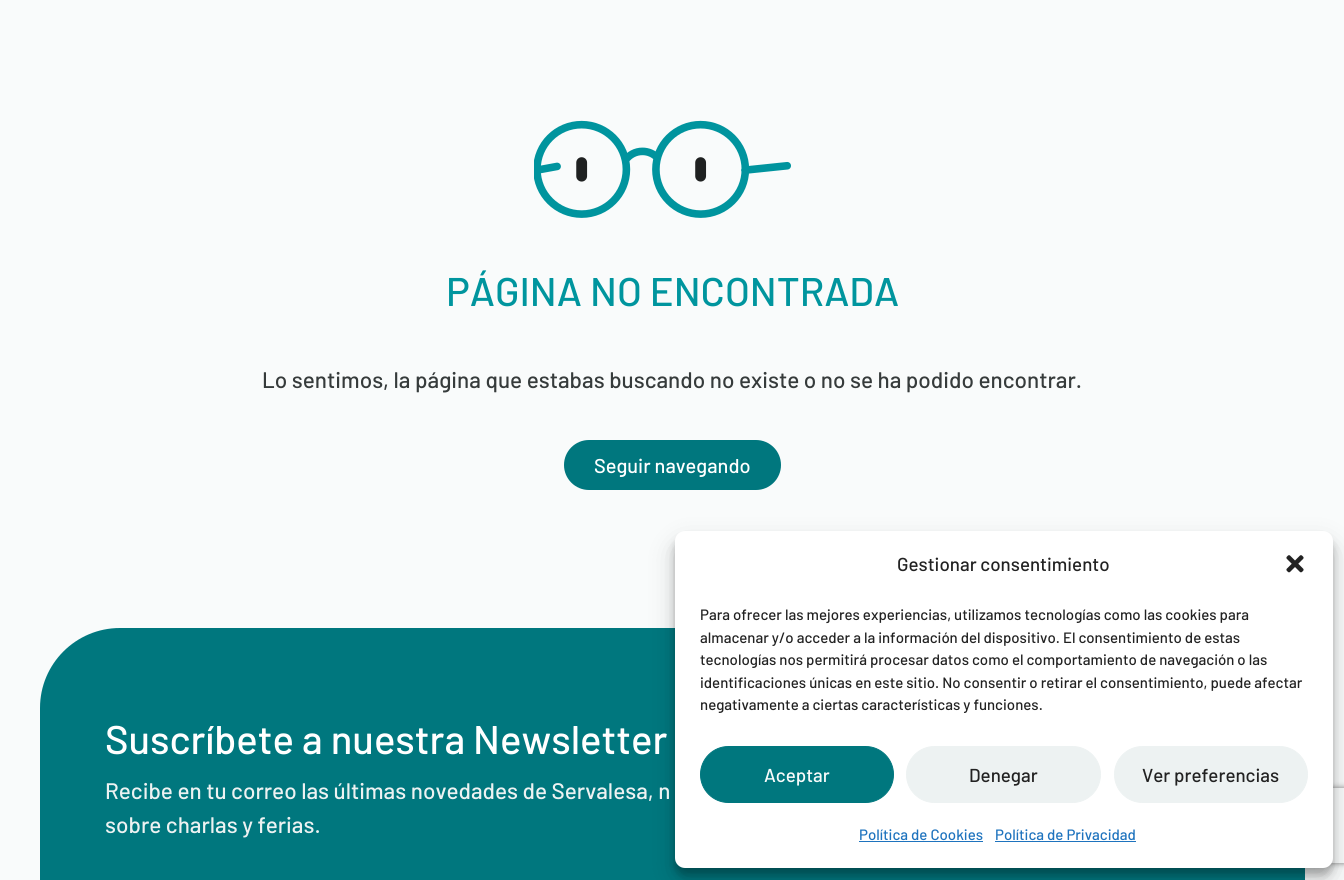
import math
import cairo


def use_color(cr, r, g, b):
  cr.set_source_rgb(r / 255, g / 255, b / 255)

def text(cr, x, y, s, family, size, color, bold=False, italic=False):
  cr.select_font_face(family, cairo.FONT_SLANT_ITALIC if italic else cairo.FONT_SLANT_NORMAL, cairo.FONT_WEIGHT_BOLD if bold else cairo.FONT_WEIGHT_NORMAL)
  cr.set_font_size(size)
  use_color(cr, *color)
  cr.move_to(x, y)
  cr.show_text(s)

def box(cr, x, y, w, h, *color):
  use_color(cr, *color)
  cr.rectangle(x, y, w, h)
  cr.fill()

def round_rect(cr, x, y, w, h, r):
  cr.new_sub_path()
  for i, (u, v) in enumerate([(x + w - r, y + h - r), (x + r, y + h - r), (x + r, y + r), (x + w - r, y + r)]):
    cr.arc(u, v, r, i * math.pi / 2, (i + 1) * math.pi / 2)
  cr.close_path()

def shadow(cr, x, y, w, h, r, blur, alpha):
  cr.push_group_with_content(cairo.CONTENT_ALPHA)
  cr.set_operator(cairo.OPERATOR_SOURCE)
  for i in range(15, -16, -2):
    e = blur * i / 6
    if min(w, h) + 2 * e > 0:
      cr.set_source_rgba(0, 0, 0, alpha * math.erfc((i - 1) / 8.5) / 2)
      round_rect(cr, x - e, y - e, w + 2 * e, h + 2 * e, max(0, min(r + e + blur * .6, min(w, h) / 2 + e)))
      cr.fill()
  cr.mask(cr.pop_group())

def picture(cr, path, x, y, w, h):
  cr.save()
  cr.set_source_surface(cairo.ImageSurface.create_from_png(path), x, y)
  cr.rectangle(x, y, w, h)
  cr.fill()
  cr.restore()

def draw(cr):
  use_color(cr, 249, 251, 251)
  cr.paint()
  picture(cr, "img_01.png", 534, 120, 257, 98)
  use_color(cr, 0, 119, 126)
  round_rect(cr, 564, 440, 217, 50, 25)
  cr.fill()
  picture(cr, "img_02.png", 1305, 868, 10, 12)
  round_rect(cr, 40, 628, 1265, 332, 80)
  cr.fill()
  cr.save()
  cr.set_fill_rule(cairo.FILL_RULE_EVEN_ODD)
  cr.new_path()
  cr.move_to(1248, 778)
  cr.line_to(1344, 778)
  cr.line_to(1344, 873)
  cr.line_to(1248, 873)
  cr.close_path()
  cr.move_to(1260.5, 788)
  cr.line_to(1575.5, 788)
  cr.curve_to(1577, 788, 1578, 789, 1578, 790.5)
  cr.line_to(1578, 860.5)
  cr.curve_to(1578, 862, 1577, 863, 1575.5, 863)
  cr.line_to(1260.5, 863)
  cr.curve_to(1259, 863, 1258, 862, 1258, 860.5)
  cr.line_to(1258, 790.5)
  cr.curve_to(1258, 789, 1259, 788, 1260.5, 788)
  cr.close_path()
  cr.clip()
  use_color(cr, 128, 128, 128)
  shadow(cr, 1258, 788, 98, 75, 2.5, 3, 1)
  cr.restore()
  use_color(cr, 0, 0, 0)
  shadow(cr, 675, 539, 658, 336, 10, 4, 0.23)
  shadow(cr, 675, 544, 658, 336, 10, 12.5, 0.19)
  use_color(cr, 255, 255, 255)
  round_rect(cr, 675, 531, 658, 337, 10)
  cr.fill()
  picture(cr, "img_03.png", 1286, 555, 18, 18)
  use_color(cr, 0, 119, 126)
  round_rect(cr, 700.5, 746.5, 193, 56, 28)
  cr.fill_preserve()
  cr.set_line_width(1)
  cr.stroke()
  use_color(cr, 237, 242, 242)
  round_rect(cr, 906.5, 746.5, 194, 56, 28)
  cr.fill_preserve()
  cr.stroke()
  round_rect(cr, 1114.5, 746.5, 193, 56, 28)
  cr.fill_preserve()
  cr.stroke()
  box(cr, 859, 841, 124, 1, 30, 115, 190)
  box(cr, 995, 841, 141, 1, 30, 115, 190)
  text(cr, 446, 306, "PÁGINA NO ENCONTRADA", "Barlow Medium", 40, (0, 149, 158))
  text(cr, 262, 388, "Lo sentimos, la página que estabas buscando no existe o no se ha podido encontrar.", "Barlow Medium", 22.5, (54, 59, 59))
  text(cr, 594, 473, "Seguir navegando", "Barlow Medium", 20, (255, 255, 255))
  text(cr, 105, 754, "Suscríbete a nuestra Newsletter", "Barlow Medium", 40, (255, 255, 255))
  text(cr, 105, 799, "Recibe en tu correo las últimas novedades de Servalesa, n", "Barlow Medium", 22.5, (237, 242, 242))
  text(cr, 105, 833, "sobre charlas y ferias.", "Barlow Medium", 22.5, (237, 242, 242))
  text(cr, 897, 571, "Gestionar consentimiento", "Barlow Medium", 18.75, (34, 34, 34))
  text(cr, 700, 620, "Para ofrecer las mejores experiencias, utilizamos tecnologías como las cookies para", "Barlow Medium", 15, (34, 34, 34))
  text(cr, 700, 643, "almacenar y/o acceder a la información del dispositivo. El consentimiento de estas", "Barlow Medium", 15, (34, 34, 34))
  text(cr, 700, 665, "tecnologías nos permitirá procesar datos como el comportamiento de navegación o las", "Barlow Medium", 15, (34, 34, 34))
  text(cr, 700, 688, "identificaciones únicas en este sitio. No consentir o retirar el consentimiento, puede afectar", "Barlow Medium", 15, (34, 34, 34))
  text(cr, 700, 710, "negativamente a ciertas características y funciones.", "Barlow Medium", 15, (34, 34, 34))
  text(cr, 764, 782, "Aceptar", "Barlow Medium", 18.75, (249, 251, 251))
  text(cr, 969, 782, "Denegar", "Barlow Medium", 18.75, (34, 34, 34))
  text(cr, 1142, 782, "Ver preferencias", "Barlow Medium", 18.75, (34, 34, 34))
  text(cr, 859, 840, "Política de Cookies", "Barlow Medium", 15, (30, 115, 190))
  text(cr, 995, 840, "Política de Privacidad", "Barlow Medium", 15, (30, 115, 190))


surface = cairo.ImageSurface(cairo.FORMAT_RGB24, 1344, 880)
cr = cairo.Context(surface)
options = cairo.FontOptions()
options.set_hint_metrics(cairo.HINT_METRICS_OFF)
options.set_hint_style(cairo.HINT_STYLE_NONE)
cr.set_font_options(options)
cr.set_miter_limit(4)
draw(cr)
surface.write_to_png("out.png")
